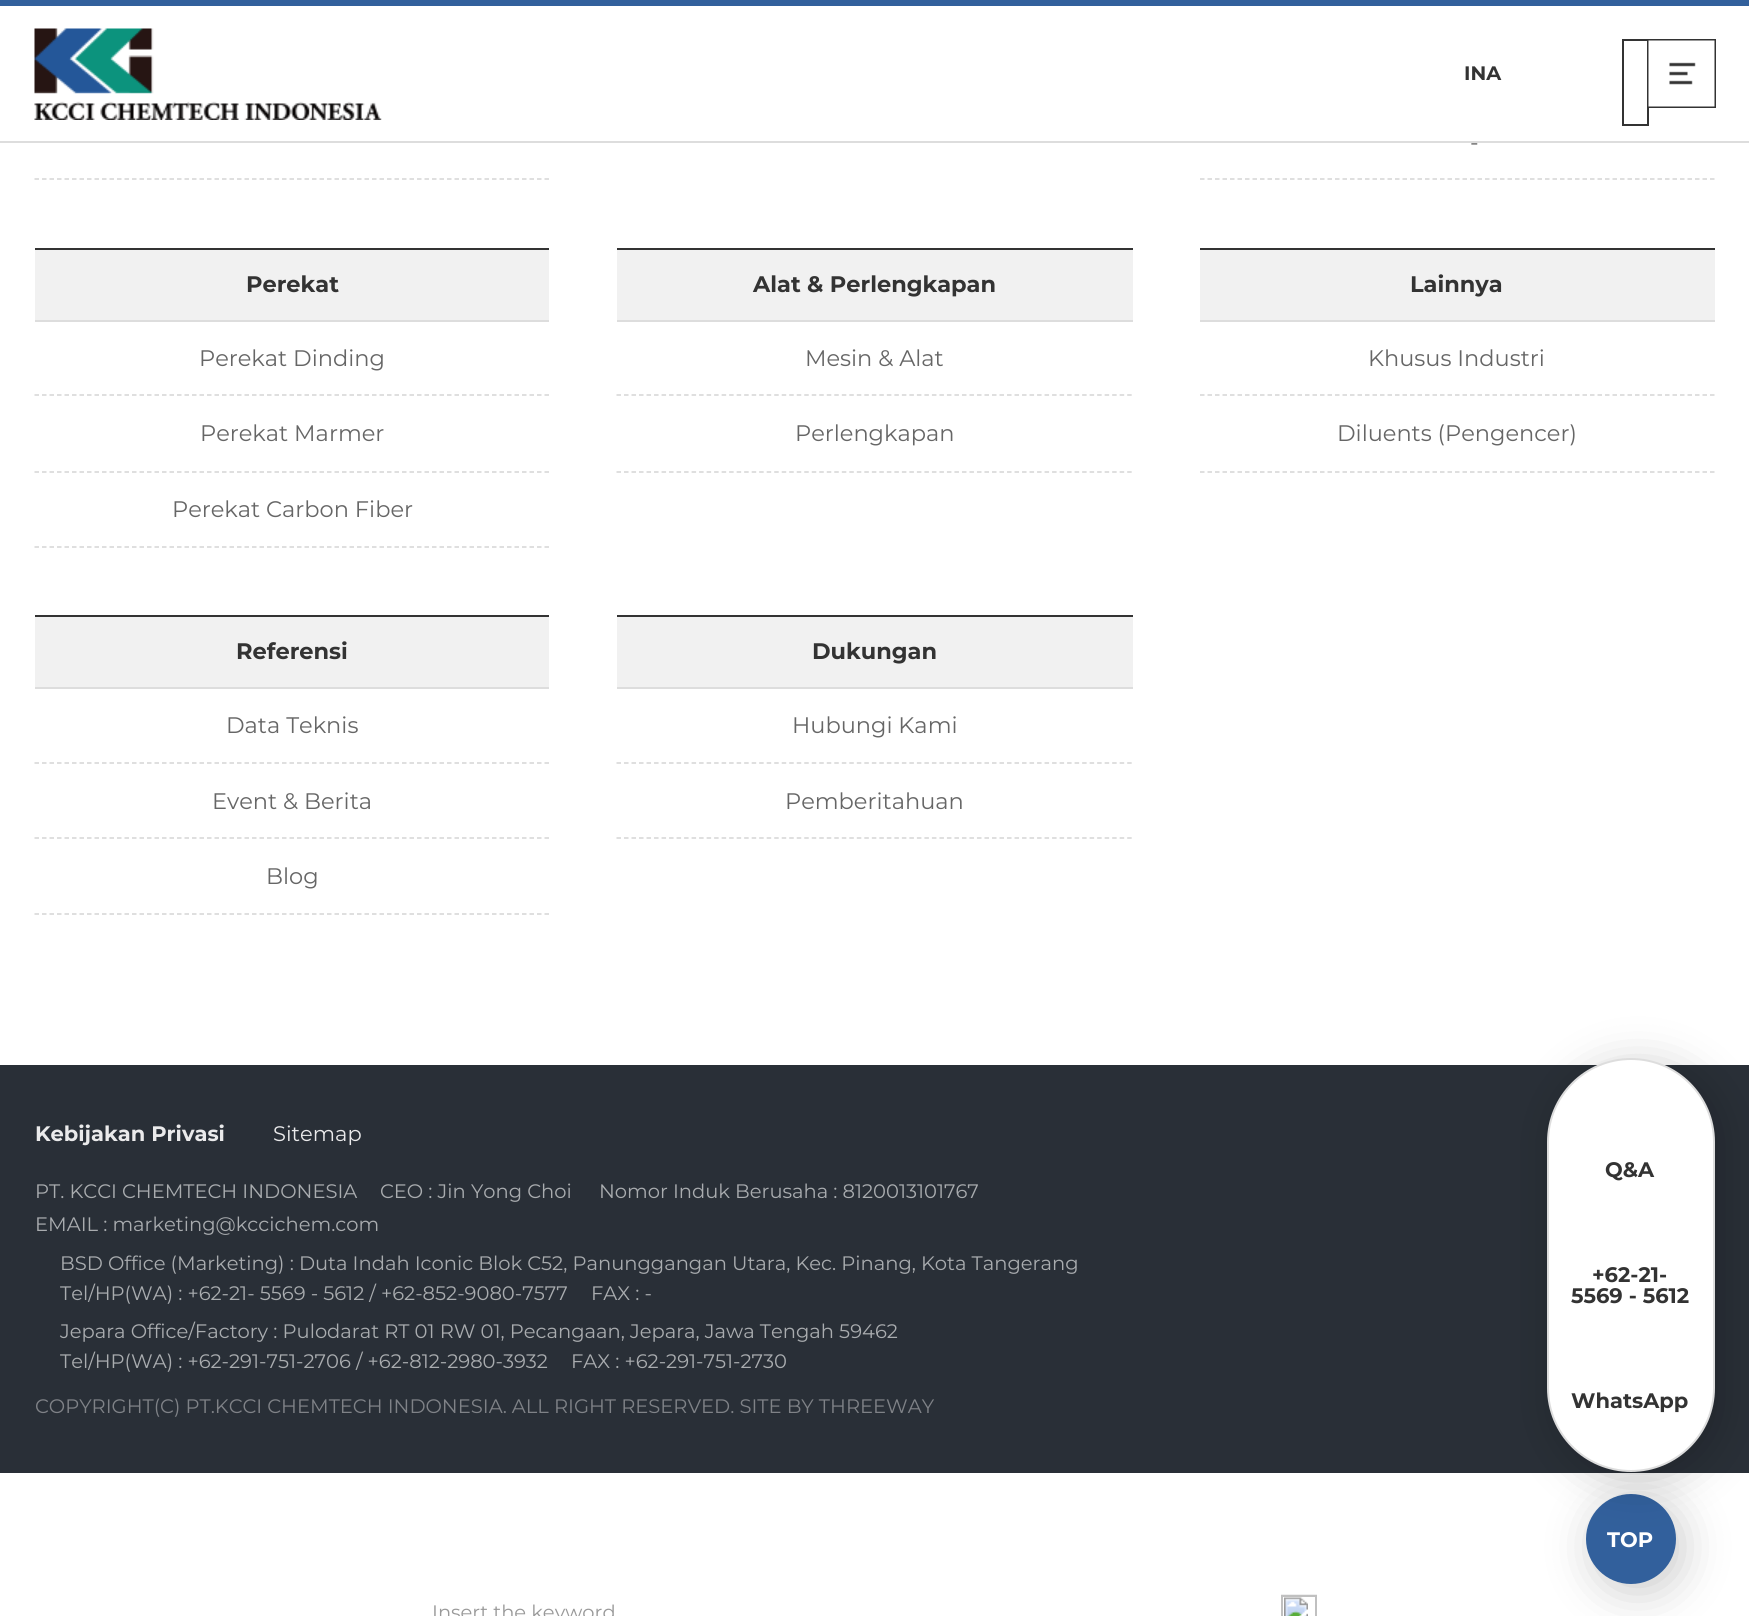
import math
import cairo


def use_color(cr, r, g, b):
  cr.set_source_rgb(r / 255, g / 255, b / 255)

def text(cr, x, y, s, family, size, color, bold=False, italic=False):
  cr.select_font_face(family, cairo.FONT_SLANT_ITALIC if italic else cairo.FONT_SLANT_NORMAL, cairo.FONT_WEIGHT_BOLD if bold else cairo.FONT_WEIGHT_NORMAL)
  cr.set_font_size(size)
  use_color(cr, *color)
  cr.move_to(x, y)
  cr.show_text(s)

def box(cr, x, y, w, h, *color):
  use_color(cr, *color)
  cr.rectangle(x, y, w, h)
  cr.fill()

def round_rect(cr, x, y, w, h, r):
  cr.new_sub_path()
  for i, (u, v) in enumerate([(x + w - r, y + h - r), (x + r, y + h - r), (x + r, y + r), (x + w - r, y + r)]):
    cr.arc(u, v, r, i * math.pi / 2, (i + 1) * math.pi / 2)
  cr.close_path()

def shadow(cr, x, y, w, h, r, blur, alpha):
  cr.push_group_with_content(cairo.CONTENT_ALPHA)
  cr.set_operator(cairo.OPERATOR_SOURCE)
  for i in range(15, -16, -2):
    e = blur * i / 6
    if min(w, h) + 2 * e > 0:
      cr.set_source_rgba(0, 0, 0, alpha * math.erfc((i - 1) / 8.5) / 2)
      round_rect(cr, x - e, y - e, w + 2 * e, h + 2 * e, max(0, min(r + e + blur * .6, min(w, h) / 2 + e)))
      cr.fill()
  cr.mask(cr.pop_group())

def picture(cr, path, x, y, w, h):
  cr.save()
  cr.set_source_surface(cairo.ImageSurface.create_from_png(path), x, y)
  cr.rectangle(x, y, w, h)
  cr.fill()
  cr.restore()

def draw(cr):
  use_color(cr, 255, 255, 255)
  cr.paint()
  box(cr, 0, 0, 1749, 6, 50, 96, 156)
  box(cr, 0, 141, 1749, 2, 221, 221, 221)
  picture(cr, "img_01.png", 34, 28, 348, 92)
  cr.rectangle(1623, 40, 25, 85)
  use_color(cr, 51, 51, 51)
  cr.stroke()
  cr.rectangle(1648, 40, 67, 67)
  cr.stroke()
  picture(cr, "img_02.png", 1648, 40, 67, 67)
  cr.new_path()
  cr.move_to(1200, 179)
  cr.line_to(1714.5, 179)
  use_color(cr, 212, 212, 212)
  cr.set_line_width(1.5)
  cr.set_dash([4.5, 3])
  cr.stroke()
  cr.new_path()
  cr.move_to(34.5, 179)
  cr.line_to(549, 179)
  cr.stroke()
  box(cr, 35, 250, 514, 70, 241, 241, 241)
  box(cr, 35, 248, 514, 2, 51, 51, 51)
  box(cr, 35, 320, 514, 2, 221, 221, 221)
  cr.new_path()
  cr.move_to(34.5, 395)
  cr.line_to(549, 395)
  use_color(cr, 212, 212, 212)
  cr.stroke()
  cr.new_path()
  cr.move_to(34.5, 472)
  cr.line_to(549, 472)
  cr.stroke()
  cr.new_path()
  cr.move_to(34.5, 547)
  cr.line_to(549, 547)
  cr.stroke()
  box(cr, 617, 250, 516, 70, 241, 241, 241)
  box(cr, 617, 248, 516, 2, 51, 51, 51)
  box(cr, 617, 320, 516, 2, 221, 221, 221)
  cr.new_path()
  cr.move_to(616.5, 395)
  cr.line_to(1132.5, 395)
  use_color(cr, 212, 212, 212)
  cr.set_dash([4.5, 3.01])
  cr.stroke()
  cr.new_path()
  cr.move_to(616.5, 472)
  cr.line_to(1132.5, 472)
  cr.stroke()
  box(cr, 1200, 250, 515, 70, 241, 241, 241)
  box(cr, 1200, 248, 515, 2, 51, 51, 51)
  box(cr, 1200, 320, 515, 2, 221, 221, 221)
  cr.new_path()
  cr.move_to(1200, 395)
  cr.line_to(1714.5, 395)
  use_color(cr, 212, 212, 212)
  cr.set_dash([4.5, 3])
  cr.stroke()
  cr.new_path()
  cr.move_to(1200, 472)
  cr.line_to(1714.5, 472)
  cr.stroke()
  box(cr, 35, 617, 514, 70, 241, 241, 241)
  box(cr, 35, 615, 514, 2, 51, 51, 51)
  box(cr, 35, 687, 514, 2, 221, 221, 221)
  cr.new_path()
  cr.move_to(34.5, 763)
  cr.line_to(549, 763)
  use_color(cr, 212, 212, 212)
  cr.stroke()
  cr.new_path()
  cr.move_to(34.5, 838)
  cr.line_to(549, 838)
  cr.stroke()
  cr.new_path()
  cr.move_to(34.5, 914)
  cr.line_to(549, 914)
  cr.stroke()
  box(cr, 617, 617, 516, 70, 241, 241, 241)
  box(cr, 617, 615, 516, 2, 51, 51, 51)
  box(cr, 617, 687, 516, 2, 221, 221, 221)
  cr.new_path()
  cr.move_to(616.5, 763)
  cr.line_to(1132.5, 763)
  use_color(cr, 212, 212, 212)
  cr.set_dash([4.5, 3.01])
  cr.stroke()
  cr.new_path()
  cr.move_to(616.5, 838)
  cr.line_to(1132.5, 838)
  cr.stroke()
  box(cr, 0, 1065, 1749, 408, 41, 47, 55)
  use_color(cr, 0, 0, 0)
  shadow(cr, 1593, 1502, 90, 90, 45, 22.5, 0.2)
  use_color(cr, 50, 96, 156)
  cr.arc(1631, 1539, 45, 0, 2 * math.pi)
  cr.fill()
  use_color(cr, 0, 0, 0)
  shadow(cr, 1554, 1065, 168, 414, 84, 22.5, 0.2)
  use_color(cr, 255, 255, 255)
  round_rect(cr, 1548, 1059, 166, 412, 83)
  cr.fill_preserve()
  use_color(cr, 221, 221, 221)
  cr.set_line_width(2)
  cr.set_dash([])
  cr.stroke()
  picture(cr, "img_03.png", 1281, 1594, 36, 22)
  cr.rectangle(1282, 1596, 34, 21)
  use_color(cr, 192, 192, 192)
  cr.stroke()
  text(cr, 1464, 80, "INA", "Montserrat", 19.5, (51, 51, 51), bold=True)
  text(cr, 1470, 150, "-", "Montserrat", 22.5, (102, 102, 102))
  text(cr, 246, 292, "Perekat", "Montserrat", 22.5, (51, 51, 51), bold=True)
  text(cr, 199, 366, "Perekat Dinding", "Montserrat", 22.5, (102, 102, 102))
  text(cr, 200, 441, "Perekat Marmer", "Montserrat", 22.5, (102, 102, 102))
  text(cr, 172, 517, "Perekat Carbon Fiber", "Montserrat", 22.5, (102, 102, 102))
  text(cr, 753, 292, "Alat & Perlengkapan", "Montserrat", 22.5, (51, 51, 51), bold=True)
  text(cr, 805, 366, "Mesin & Alat", "Montserrat", 22.5, (102, 102, 102))
  text(cr, 795, 441, "Perlengkapan", "Montserrat", 22.5, (102, 102, 102))
  text(cr, 1410, 292, "Lainnya", "Montserrat", 22.5, (51, 51, 51), bold=True)
  text(cr, 1368, 366, "Khusus Industri", "Montserrat", 22.5, (102, 102, 102))
  text(cr, 1337, 441, "Diluents (Pengencer)", "Montserrat", 22.5, (102, 102, 102))
  text(cr, 236, 659, "Referensi", "Montserrat", 22.5, (51, 51, 51), bold=True)
  text(cr, 226, 733, "Data Teknis", "Montserrat", 22.5, (102, 102, 102))
  text(cr, 212, 809, "Event & Berita", "Montserrat", 22.5, (102, 102, 102))
  text(cr, 266, 884, "Blog", "Montserrat", 22.5, (102, 102, 102))
  text(cr, 812, 659, "Dukungan", "Montserrat", 22.5, (51, 51, 51), bold=True)
  text(cr, 792, 733, "Hubungi Kami", "Montserrat", 22.5, (102, 102, 102))
  text(cr, 785, 809, "Pemberitahuan", "Montserrat", 22.5, (102, 102, 102))
  text(cr, 35, 1141, "Kebijakan Privasi", "Montserrat", 21, (234, 234, 235), bold=True)
  text(cr, 273, 1141, "Sitemap", "Montserrat", 21, (234, 234, 235))
  text(cr, 35, 1198, "PT. KCCI CHEMTECH INDONESIA", "Montserrat", 19.5, (169, 172, 175))
  text(cr, 380, 1198, "CEO : Jin Yong Choi", "Montserrat", 19.5, (169, 172, 175))
  text(cr, 599, 1198, "Nomor Induk Berusaha : 8120013101767", "Montserrat", 19.5, (169, 172, 175))
  text(cr, 35, 1231, "EMAIL : marketing@kccichem.com", "Montserrat", 19.5, (169, 172, 175))
  text(cr, 60, 1270, "BSD Office (Marketing) : Duta Indah Iconic Blok C52, Panunggangan Utara, Kec. Pinang, Kota Tangerang", "Montserrat", 19.5, (169, 172, 175))
  text(cr, 60, 1300, "Tel/HP(WA) : +62-21- 5569 - 5612 / +62-852-9080-7577", "Montserrat", 19.5, (169, 172, 175))
  text(cr, 591, 1300, "FAX : -", "Montserrat", 19.5, (169, 172, 175))
  text(cr, 60, 1338, "Jepara Office/Factory : Pulodarat RT 01 RW 01, Pecangaan, Jepara, Jawa Tengah 59462", "Montserrat", 19.5, (169, 172, 175))
  text(cr, 60, 1368, "Tel/HP(WA) : +62-291-751-2706 / +62-812-2980-3932", "Montserrat", 19.5, (169, 172, 175))
  text(cr, 571, 1368, "FAX : +62-291-751-2730", "Montserrat", 19.5, (169, 172, 175))
  text(cr, 35, 1413, "COPYRIGHT(C) PT.KCCI CHEMTECH INDONESIA. ALL RIGHT RESERVED. SITE BY THREEWAY", "Montserrat", 19.5, (127, 130, 135))
  text(cr, 1605, 1177, "Q&A", "Montserrat", 21, (51, 51, 51), bold=True)
  text(cr, 1592, 1282, "+62-21-", "Montserrat", 21, (51, 51, 51), bold=True)
  text(cr, 1571, 1303, "5569 - 5612", "Montserrat", 21, (51, 51, 51), bold=True)
  text(cr, 1571, 1408, "WhatsApp", "Montserrat", 21, (51, 51, 51), bold=True)
  text(cr, 1607, 1547, "TOP", "Montserrat", 21, (255, 255, 255), bold=True)
  text(cr, 432, 1619, "Insert the keyword", "Montserrat", 19.5, (153, 153, 153))


surface = cairo.ImageSurface(cairo.FORMAT_RGB24, 1749, 1616)
cr = cairo.Context(surface)
options = cairo.FontOptions()
options.set_hint_metrics(cairo.HINT_METRICS_OFF)
options.set_hint_style(cairo.HINT_STYLE_NONE)
cr.set_font_options(options)
cr.set_miter_limit(4)
draw(cr)
surface.write_to_png("out.png")
